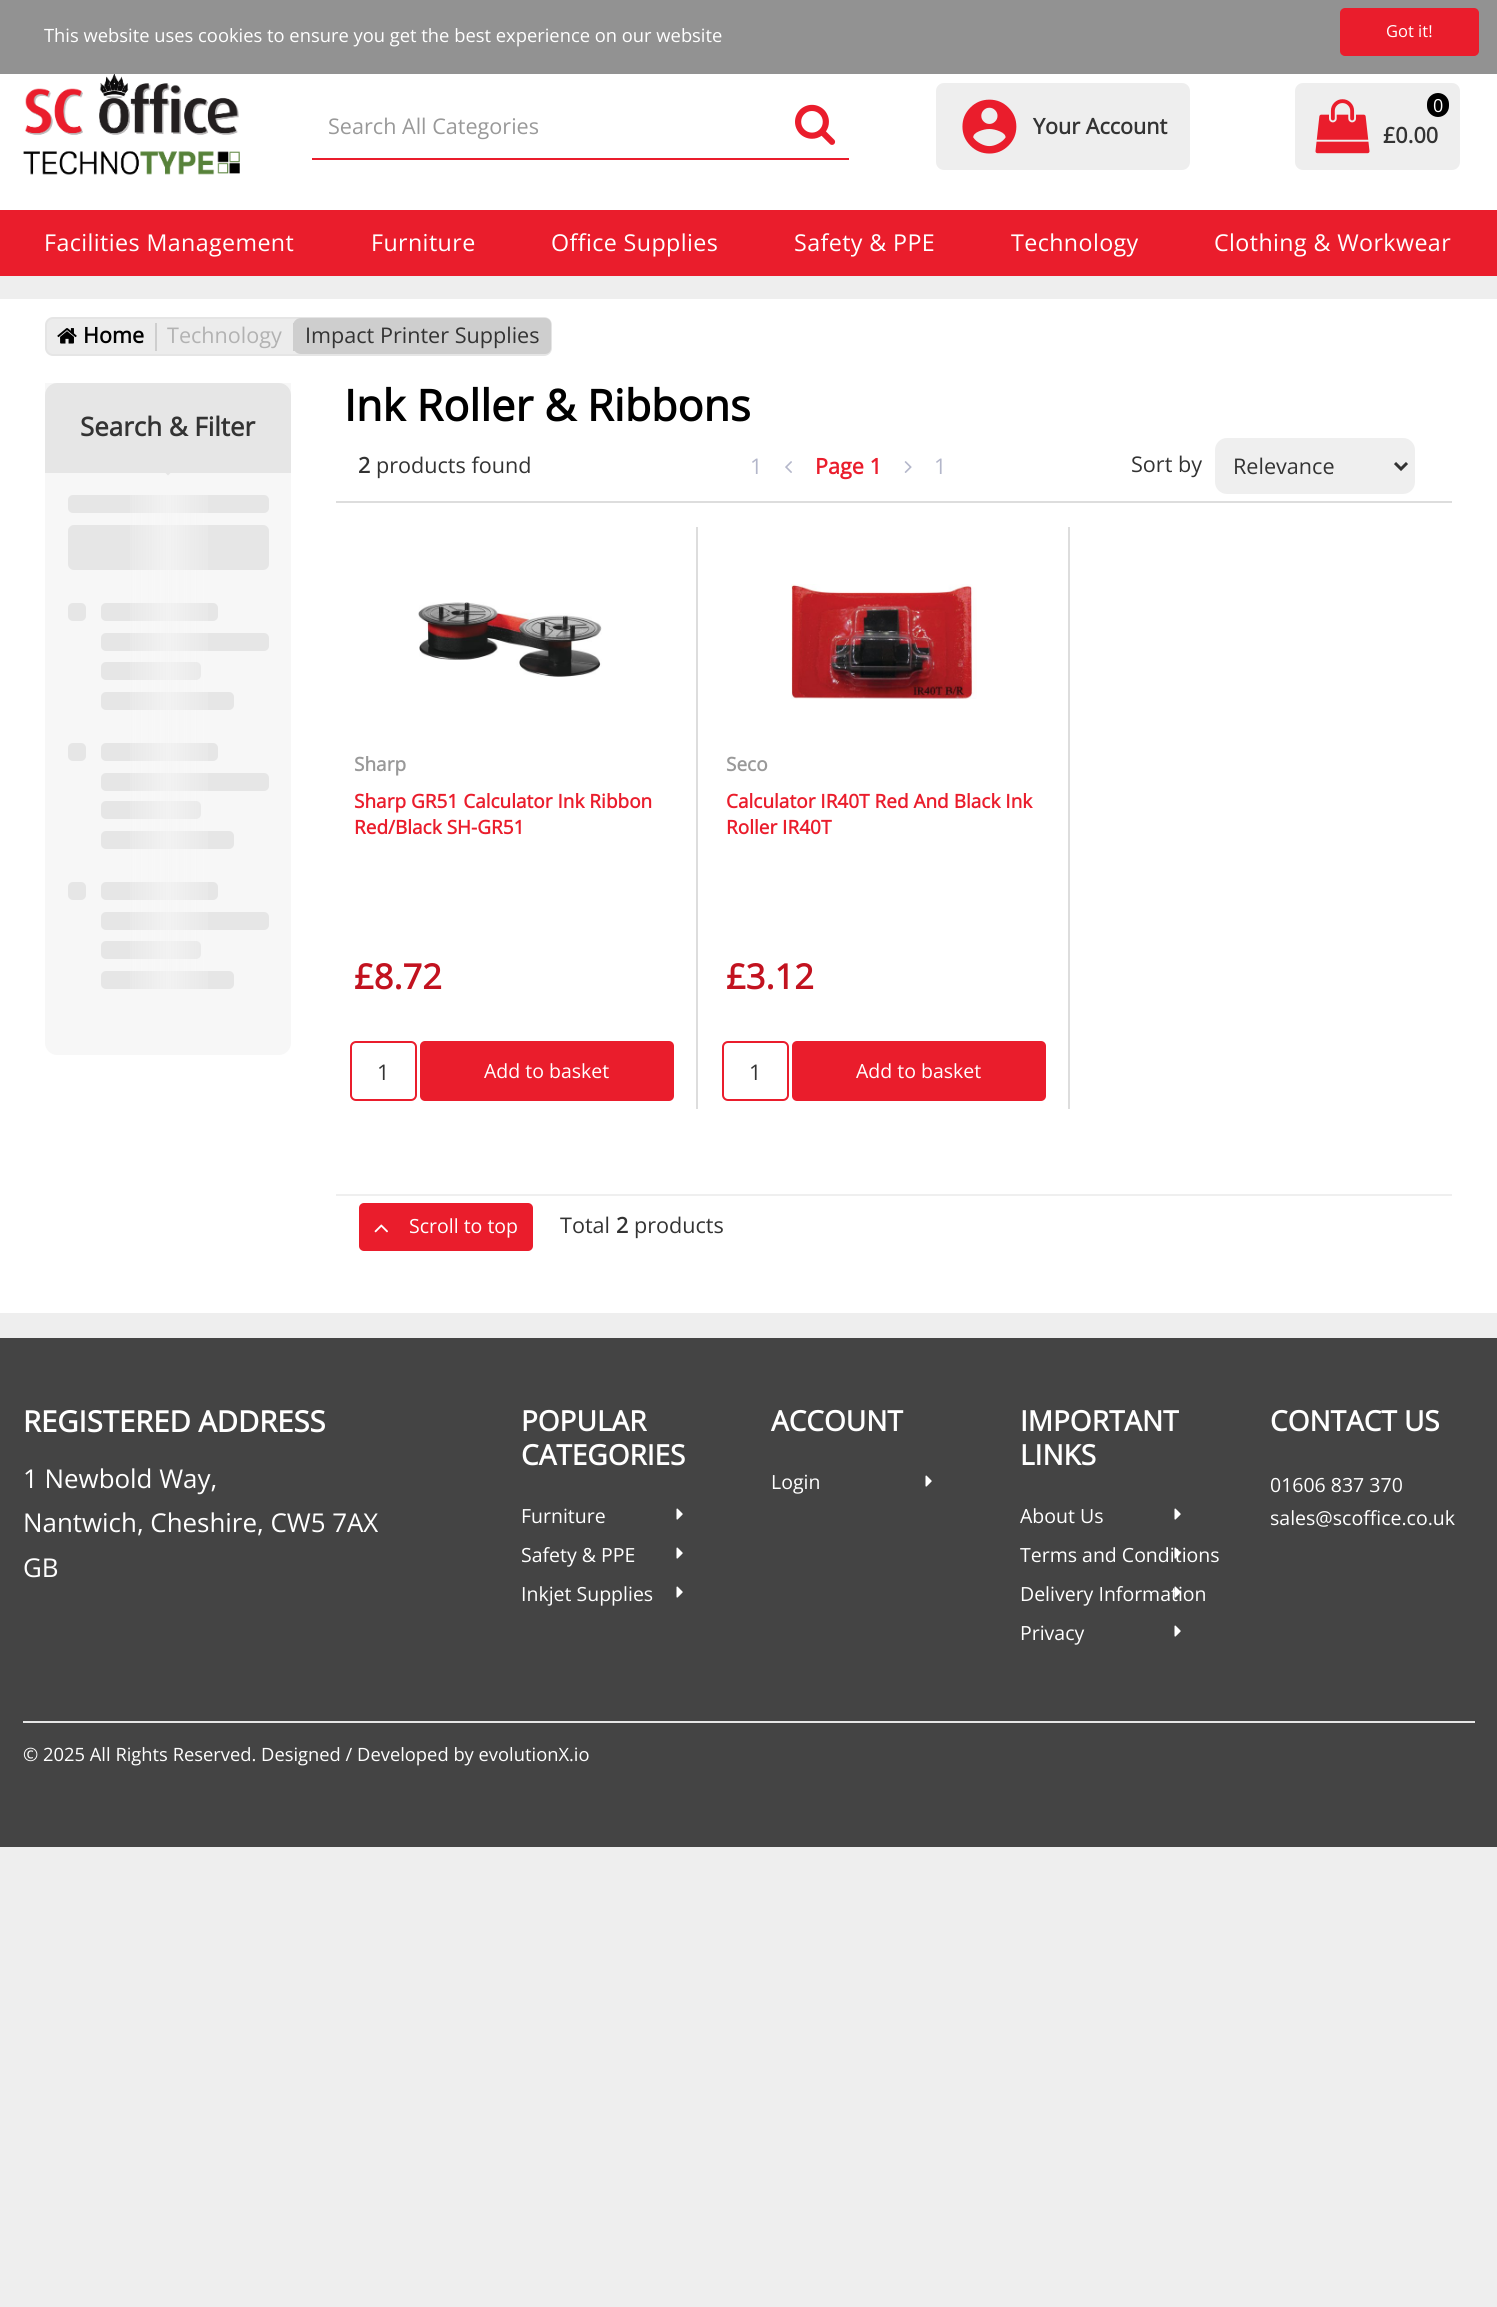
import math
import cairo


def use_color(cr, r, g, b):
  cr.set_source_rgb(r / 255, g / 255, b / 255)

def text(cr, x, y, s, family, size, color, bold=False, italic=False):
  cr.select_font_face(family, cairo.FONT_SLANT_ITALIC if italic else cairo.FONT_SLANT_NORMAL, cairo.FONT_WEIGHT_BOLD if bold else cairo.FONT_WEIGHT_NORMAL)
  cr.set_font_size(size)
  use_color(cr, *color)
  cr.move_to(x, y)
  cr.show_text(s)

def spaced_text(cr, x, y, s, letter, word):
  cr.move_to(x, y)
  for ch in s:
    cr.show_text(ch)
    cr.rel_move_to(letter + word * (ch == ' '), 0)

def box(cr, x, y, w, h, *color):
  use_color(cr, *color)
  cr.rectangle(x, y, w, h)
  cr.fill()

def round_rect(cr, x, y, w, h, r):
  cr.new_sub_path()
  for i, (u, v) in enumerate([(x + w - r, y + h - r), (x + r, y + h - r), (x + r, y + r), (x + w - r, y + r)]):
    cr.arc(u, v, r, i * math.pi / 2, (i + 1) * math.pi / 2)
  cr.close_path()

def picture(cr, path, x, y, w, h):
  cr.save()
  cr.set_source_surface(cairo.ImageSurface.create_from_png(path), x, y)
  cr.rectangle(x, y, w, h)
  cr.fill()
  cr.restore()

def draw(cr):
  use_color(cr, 238, 238, 238)
  cr.paint()
  box(cr, 0, 1338, 1497, 509, 68, 68, 68)
  box(cr, 0, 0, 1497, 74, 146, 146, 146)
  use_color(cr, 234, 29, 44)
  round_rect(cr, 1341, 9, 137, 46, 4)
  cr.fill_preserve()
  cr.stroke()
  picture(cr, "img_01.png", 676, 1508, 7, 12)
  picture(cr, "img_01.png", 676, 1547, 7, 12)
  picture(cr, "img_01.png", 676, 1586, 7, 12)
  picture(cr, "img_01.png", 925, 1475, 7, 12)
  picture(cr, "img_01.png", 1174, 1508, 7, 12)
  picture(cr, "img_01.png", 1174, 1625, 7, 12)
  box(cr, 23, 1721, 1452, 2, 230, 230, 230)
  box(cr, 0, 74, 1497, 136, 255, 255, 255)
  picture(cr, "img_04.png", 23, 74, 217, 101)
  box(cr, 312, 158, 537, 2, 234, 29, 44)
  picture(cr, "img_05.png", 795, 104, 41, 41)
  use_color(cr, 238, 238, 238)
  round_rect(cr, 936, 83, 254, 87, 8)
  cr.fill()
  picture(cr, "img_06.png", 962, 99, 55, 55)
  round_rect(cr, 1295, 83, 165, 87, 8)
  cr.fill()
  picture(cr, "img_07.png", 1315, 99, 55, 55)
  use_color(cr, 0, 0, 0)
  round_rect(cr, 1427, 93, 22, 24, 11)
  cr.fill()
  box(cr, 0, 210, 1497, 66, 234, 29, 44)
  box(cr, 0, 299, 1497, 1014, 255, 255, 255)
  use_color(cr, 236, 236, 236)
  round_rect(cr, 46, 318, 505, 37, 7)
  cr.fill_preserve()
  use_color(cr, 229, 229, 229)
  cr.stroke()
  picture(cr, "img_08.png", 57, 328, 20, 16)
  box(cr, 155, 323, 2, 28, 206, 206, 206)
  cr.new_path()
  cr.move_to(301, 318)
  cr.line_to(545, 318)
  cr.curve_to(548.5, 318, 551, 320.5, 551, 324)
  cr.line_to(551, 348)
  cr.curve_to(551, 351.5, 548.5, 354, 545, 354)
  cr.line_to(301, 354)
  cr.curve_to(296.5, 354, 293, 350.5, 293, 346)
  cr.line_to(293, 326)
  cr.curve_to(293, 321.5, 296.5, 318, 301, 318)
  cr.close_path()
  cr.fill()
  box(cr, 293, 323, 2, 28, 206, 206, 206)
  use_color(cr, 247, 247, 247)
  cr.new_path()
  cr.move_to(45, 383)
  cr.line_to(291, 383)
  cr.line_to(291, 1043)
  cr.curve_to(291, 1049.5, 285.5, 1055, 279, 1055)
  cr.line_to(57, 1055)
  cr.curve_to(50.5, 1055, 45, 1049.5, 45, 1043)
  cr.close_path()
  cr.fill()
  use_color(cr, 230, 230, 230)
  cr.new_path()
  cr.move_to(57, 383)
  cr.line_to(279, 383)
  cr.curve_to(285.5, 383, 291, 388.5, 291, 395)
  cr.line_to(291, 473)
  cr.line_to(45, 473)
  cr.line_to(45, 395)
  cr.curve_to(45, 388.5, 50.5, 383, 57, 383)
  cr.close_path()
  cr.fill()
  cr.new_path()
  cr.move_to(153, 460.5)
  cr.line_to(183, 460.5)
  cr.line_to(168, 475.5)
  cr.close_path()
  cr.fill()
  round_rect(cr, 68, 495, 201, 18, 5)
  cr.fill()
  round_rect(cr, 68, 525, 201, 45, 6)
  cr.fill()
  round_rect(cr, 101, 603, 117, 18, 5)
  cr.fill()
  round_rect(cr, 68, 603, 18, 18, 5)
  cr.fill()
  round_rect(cr, 101, 633, 168, 18, 5)
  cr.fill()
  round_rect(cr, 101, 662, 100, 18, 5)
  cr.fill()
  round_rect(cr, 101, 692, 133, 18, 5)
  cr.fill()
  round_rect(cr, 101, 743, 117, 18, 5)
  cr.fill()
  round_rect(cr, 68, 743, 18, 18, 5)
  cr.fill()
  round_rect(cr, 101, 773, 168, 18, 5)
  cr.fill()
  round_rect(cr, 101, 801, 100, 18, 5)
  cr.fill()
  round_rect(cr, 101, 831, 133, 18, 5)
  cr.fill()
  round_rect(cr, 101, 882, 117, 18, 5)
  cr.fill()
  round_rect(cr, 68, 882, 18, 18, 5)
  cr.fill()
  round_rect(cr, 101, 912, 168, 18, 5)
  cr.fill()
  round_rect(cr, 101, 941, 100, 18, 5)
  cr.fill()
  round_rect(cr, 101, 971, 133, 18, 5)
  cr.fill()
  gradient = cairo.LinearGradient(-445, 761, 782, 761)
  gradient.add_color_stop_rgba(0.46, 0.969, 0.969, 0.969, 0)
  gradient.add_color_stop_rgba(0.5, 0.969, 0.969, 0.969, 0.7)
  gradient.add_color_stop_rgba(0.54, 0.969, 0.969, 0.969, 0)
  cr.set_source(gradient)
  cr.rectangle(130, 495, 78, 494)
  cr.fill()
  picture(cr, "img_09.png", 785, 461, 7, 12)
  picture(cr, "img_10.png", 904, 461, 8, 12)
  use_color(cr, 239, 239, 239)
  round_rect(cr, 1216, 439, 198, 54, 11)
  cr.fill_preserve()
  cr.stroke()
  cr.new_path()
  cr.move_to(1395, 463)
  cr.line_to(1401, 469)
  cr.line_to(1407, 463)
  use_color(cr, 51, 51, 51)
  cr.set_line_width(3)
  cr.stroke()
  box(cr, 336, 501, 1116, 2, 221, 221, 221)
  box(cr, 696, 527, 2, 582, 221, 221, 221)
  picture(cr, "img_11.png", 418, 602, 184, 75)
  round_rect(cr, 351, 1042, 65, 58, 5)
  use_color(cr, 234, 29, 44)
  cr.set_line_width(2)
  cr.stroke()
  round_rect(cr, 420, 1041, 254, 60, 5)
  cr.fill()
  box(cr, 1068, 527, 2, 582, 221, 221, 221)
  picture(cr, "img_12.png", 791, 584, 186, 115)
  round_rect(cr, 723, 1042, 65, 58, 5)
  use_color(cr, 234, 29, 44)
  cr.stroke()
  round_rect(cr, 792, 1041, 254, 60, 5)
  cr.fill()
  box(cr, 336, 1194, 1116, 2, 239, 239, 239)
  use_color(cr, 234, 29, 44)
  round_rect(cr, 359, 1203, 174, 48, 5)
  cr.fill()
  picture(cr, "img_13.png", 374, 1224, 14, 9)
  text(cr, 44, 42, "This website uses cookies to ensure you get the best experience on our website", "Open Sans", 18.35, (255, 255, 255))
  text(cr, 1386, 37, "Got it!", "Open Sans", 16.5, (255, 255, 255))
  text(cr, 23, 1761, "© 2025 All Rights Reserved. Designed / Developed by evolutionX.io", "Open Sans", 18.35, (255, 255, 255))
  text(cr, 23, 1432, "REGISTERED ADDRESS", "Open Sans", 29.25, (255, 255, 255), bold=True)
  text(cr, 23, 1488, "1 Newbold Way,", "Open Sans", 25.9, (255, 255, 255))
  text(cr, 23, 1532, "Nantwich, Cheshire, CW5 7AX", "Open Sans", 25.9, (255, 255, 255))
  text(cr, 23, 1577, "GB", "Open Sans", 25.9, (255, 255, 255))
  text(cr, 521, 1431, "POPULAR", "Open Sans", 28, (255, 255, 255), bold=True)
  text(cr, 521, 1465, "CATEGORIES", "Open Sans", 28, (255, 255, 255), bold=True)
  text(cr, 521, 1523, "Furniture", "Open Sans", 19.5, (255, 255, 255))
  text(cr, 521, 1562, "Safety & PPE", "Open Sans", 19.5, (255, 255, 255))
  text(cr, 521, 1601, "Inkjet Supplies", "Open Sans", 19.5, (255, 255, 255))
  text(cr, 771, 1431, "ACCOUNT", "Open Sans", 28, (255, 255, 255), bold=True)
  text(cr, 771, 1489, "Login", "Open Sans", 19.5, (255, 255, 255))
  text(cr, 1020, 1431, "IMPORTANT", "Open Sans", 28, (255, 255, 255), bold=True)
  text(cr, 1020, 1465, "LINKS", "Open Sans", 28, (255, 255, 255), bold=True)
  text(cr, 1020, 1523, "About Us", "Open Sans", 19.5, (255, 255, 255))
  text(cr, 1020, 1562, "Terms and Conditions", "Open Sans", 19.5, (255, 255, 255))
  picture(cr, "img_02.png", 1174, 1547, 7, 12)
  text(cr, 1020, 1601, "Delivery Information", "Open Sans", 19.5, (255, 255, 255))
  picture(cr, "img_03.png", 1174, 1586, 6, 12)
  text(cr, 1020, 1640, "Privacy", "Open Sans", 19.5, (255, 255, 255))
  text(cr, 1270, 1431, "CONTACT US", "Open Sans", 28, (255, 255, 255), bold=True)
  text(cr, 1270, 1492, "01606 837 370", "Open Sans", 19.5, (255, 255, 255))
  text(cr, 1270, 1525, "sales@scoffice.co.uk", "Open Sans", 19.5, (255, 255, 255))
  text(cr, 328, 134, "Search All Categories", "Open Sans", 21.6, (153, 153, 153))
  text(cr, 1033, 134, "Your Account", "Open Sans", 21.6, (51, 51, 51), bold=True)
  text(cr, 1383, 143, "£0.00", "Open Sans", 21.6, (51, 51, 51), bold=True)
  text(cr, 1433, 112, "0", "Open Sans", 18, (255, 255, 255))
  cr.set_font_size(23.25)
  spaced_text(cr, 44, 251, "Facilities Management", 0.4, 0)
  spaced_text(cr, 371, 251, "Furniture", 0.4, 0)
  spaced_text(cr, 551, 251, "Office Supplies", 0.4, 0)
  spaced_text(cr, 794, 251, "Safety & PPE", 0.4, 0)
  spaced_text(cr, 1011, 251, "Technology", 0.4, 0)
  spaced_text(cr, 1214, 251, "Clothing & Workwear", 0.4, 0)
  text(cr, 83, 343, "Home", "Open Sans", 21.6, (0, 0, 0), bold=True)
  text(cr, 167, 343, "Technology", "Open Sans", 21.6, (178, 178, 178))
  text(cr, 305, 343, "Impact Printer Supplies", "Open Sans", 21.6, (51, 51, 51))
  text(cr, 80, 436, "Search & Filter", "Open Sans", 25.9, (51, 51, 51), bold=True)
  text(cr, 344, 421, "Ink Roller & Ribbons", "Open Sans", 43.25, (0, 0, 0), bold=True)
  text(cr, 358, 473, "2", "Open Sans", 21.6, (51, 51, 51), bold=True)
  text(cr, 376, 473, "products found", "Open Sans", 21.6, (51, 51, 51))
  text(cr, 750, 474, "1", "Open Sans", 21.6, (179, 182, 202))
  text(cr, 815, 474, "Page 1", "Open Sans", 21.6, (234, 29, 44), bold=True)
  text(cr, 934, 474, "1", "Open Sans", 21.6, (179, 182, 202))
  text(cr, 1131, 472, "Sort by", "Open Sans", 21.6, (51, 51, 51))
  text(cr, 1233, 474, "Relevance", "Open Sans", 21.6, (51, 51, 51))
  text(cr, 354, 771, "Sharp", "Open Sans", 19, (153, 153, 153), bold=True)
  text(cr, 354, 808, "Sharp GR51 Calculator Ink Ribbon", "Open Sans", 19, (234, 29, 44), bold=True)
  text(cr, 354, 834, "Red/Black SH-GR51", "Open Sans", 19, (234, 29, 44), bold=True)
  text(cr, 354, 989, "£8.72", "Open Sans", 34.5, (194, 18, 31), bold=True)
  text(cr, 377, 1080, "1", "Open Sans", 21.6, (51, 51, 51))
  text(cr, 484, 1078, "Add to basket", "Open Sans", 19.5, (255, 255, 255))
  text(cr, 726, 771, "Seco", "Open Sans", 19, (153, 153, 153), bold=True)
  text(cr, 726, 808, "Calculator IR40T Red And Black Ink", "Open Sans", 19, (234, 29, 44), bold=True)
  text(cr, 726, 834, "Roller IR40T", "Open Sans", 19, (234, 29, 44), bold=True)
  text(cr, 726, 989, "£3.12", "Open Sans", 34.5, (194, 18, 31), bold=True)
  text(cr, 749, 1080, "1", "Open Sans", 21.6, (51, 51, 51))
  text(cr, 856, 1078, "Add to basket", "Open Sans", 19.5, (255, 255, 255))
  text(cr, 409, 1233, "Scroll to top", "Open Sans", 19.5, (255, 255, 255))
  text(cr, 560, 1233, "Total", "Open Sans", 21.6, (51, 51, 51))
  text(cr, 616, 1233, "2", "Open Sans", 21.6, (51, 51, 51), bold=True)
  text(cr, 634, 1233, "products", "Open Sans", 21.6, (51, 51, 51))


surface = cairo.ImageSurface(cairo.FORMAT_RGB24, 1497, 2307)
cr = cairo.Context(surface)
options = cairo.FontOptions()
options.set_hint_metrics(cairo.HINT_METRICS_OFF)
options.set_hint_style(cairo.HINT_STYLE_NONE)
cr.set_font_options(options)
cr.set_miter_limit(4)
draw(cr)
surface.write_to_png("out.png")
